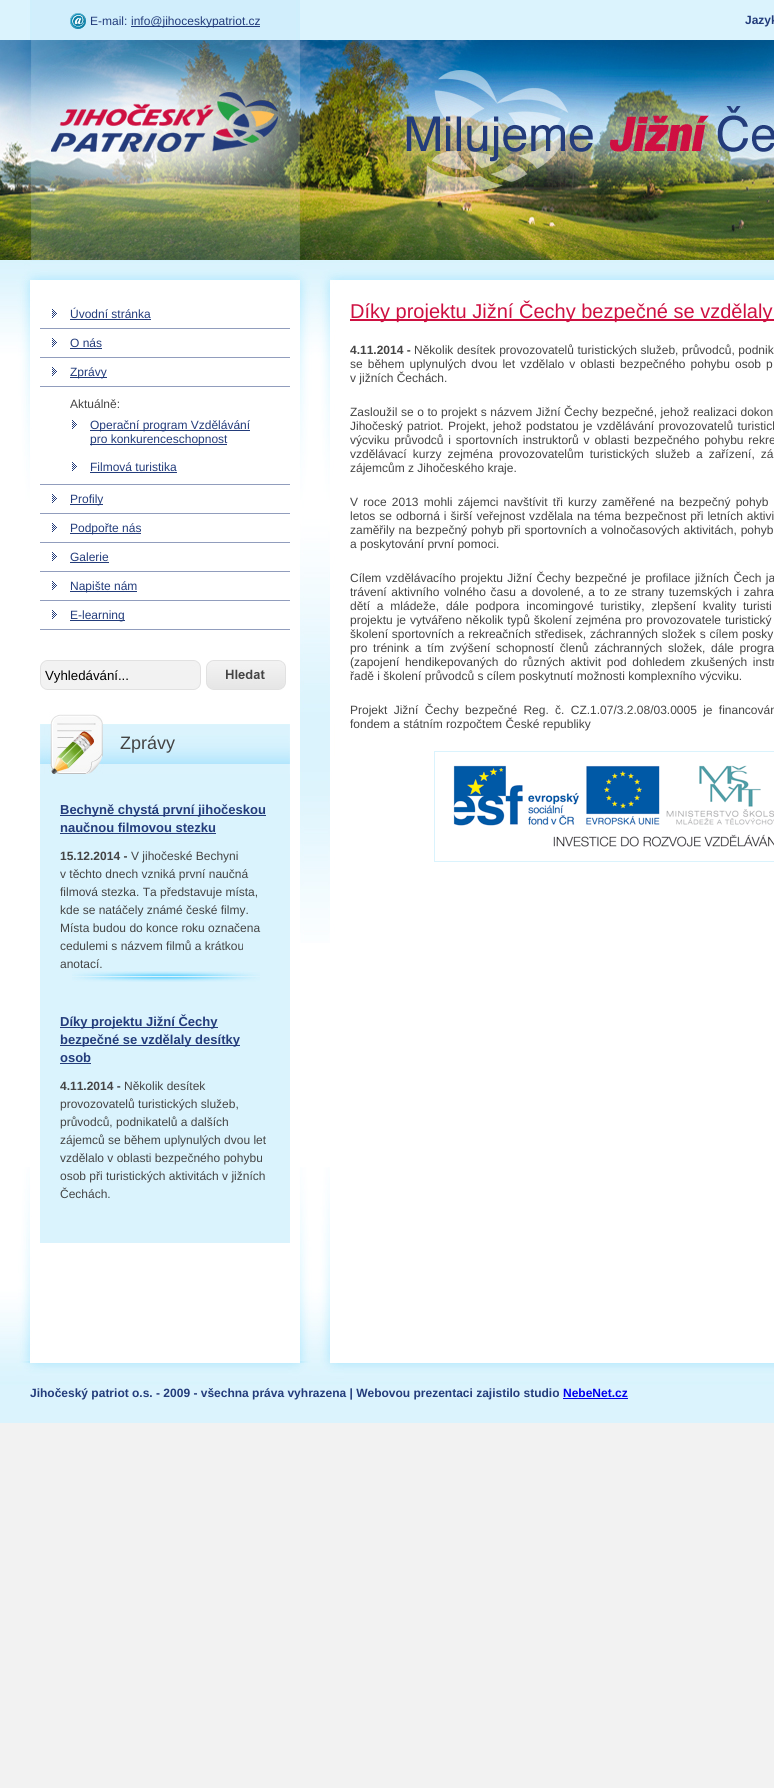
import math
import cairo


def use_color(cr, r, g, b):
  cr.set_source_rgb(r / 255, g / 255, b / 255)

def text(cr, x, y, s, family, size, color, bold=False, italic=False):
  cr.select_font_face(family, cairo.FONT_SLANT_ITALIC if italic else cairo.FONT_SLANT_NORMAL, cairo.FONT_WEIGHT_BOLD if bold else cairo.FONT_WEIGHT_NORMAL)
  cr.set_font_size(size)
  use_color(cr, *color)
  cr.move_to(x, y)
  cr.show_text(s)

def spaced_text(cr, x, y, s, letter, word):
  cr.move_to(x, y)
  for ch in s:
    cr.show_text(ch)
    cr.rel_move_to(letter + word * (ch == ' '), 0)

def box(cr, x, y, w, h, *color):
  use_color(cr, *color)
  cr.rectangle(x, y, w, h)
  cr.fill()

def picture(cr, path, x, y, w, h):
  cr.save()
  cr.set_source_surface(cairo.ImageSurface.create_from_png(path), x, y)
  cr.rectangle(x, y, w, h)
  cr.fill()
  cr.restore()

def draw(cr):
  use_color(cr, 242, 242, 242)
  cr.paint()
  box(cr, 0, 943, 774, 420, 255, 255, 255)
  picture(cr, "img_01.png", 0, 1167, 330, 196)
  picture(cr, "img_02.png", 0, 260, 774, 683)
  picture(cr, "img_03.png", 0, 0, 774, 260)
  picture(cr, "img_04.png", 70, 13, 16, 16)
  box(cr, 131, 26, 129, 1, 35, 60, 123)
  picture(cr, "img_05.png", 52, 309, 5, 9)
  box(cr, 40, 328, 250, 1, 145, 157, 189)
  box(cr, 70, 319, 81, 1, 35, 60, 123)
  picture(cr, "img_05.png", 52, 338, 5, 9)
  box(cr, 40, 357, 250, 1, 145, 157, 189)
  box(cr, 70, 348, 32, 1, 35, 60, 123)
  picture(cr, "img_05.png", 52, 367, 5, 9)
  box(cr, 40, 386, 250, 1, 145, 157, 189)
  box(cr, 70, 377, 37, 1, 35, 60, 123)
  picture(cr, "img_05.png", 72, 420, 5, 9)
  box(cr, 90, 430, 160, 1, 35, 60, 123)
  box(cr, 90, 444, 137, 1, 35, 60, 123)
  picture(cr, "img_05.png", 72, 462, 5, 9)
  box(cr, 90, 472, 87, 1, 35, 60, 123)
  picture(cr, "img_05.png", 52, 494, 5, 9)
  box(cr, 40, 484, 250, 1, 145, 157, 189)
  box(cr, 40, 513, 250, 1, 145, 157, 189)
  box(cr, 70, 504, 33, 1, 35, 60, 123)
  picture(cr, "img_05.png", 52, 523, 5, 9)
  box(cr, 40, 542, 250, 1, 145, 157, 189)
  box(cr, 70, 533, 71, 1, 35, 60, 123)
  picture(cr, "img_05.png", 52, 552, 5, 9)
  box(cr, 40, 571, 250, 1, 145, 157, 189)
  box(cr, 70, 562, 39, 1, 35, 60, 123)
  picture(cr, "img_05.png", 52, 581, 5, 9)
  box(cr, 40, 600, 250, 1, 145, 157, 189)
  box(cr, 70, 591, 67, 1, 35, 60, 123)
  picture(cr, "img_05.png", 52, 610, 5, 9)
  box(cr, 40, 629, 250, 1, 145, 157, 189)
  box(cr, 70, 620, 55, 1, 35, 60, 123)
  picture(cr, "img_06.png", 40, 660, 161, 30)
  picture(cr, "img_07.png", 206, 660, 80, 30)
  box(cr, 40, 774, 250, 469, 218, 243, 253)
  picture(cr, "img_08.png", 72, 971, 188, 11)
  picture(cr, "img_09.png", 40, 711, 250, 63)
  box(cr, 60, 815, 206, 1, 35, 60, 123)
  box(cr, 60, 833, 156, 1, 35, 60, 123)
  box(cr, 60, 1027, 158, 1, 35, 60, 123)
  box(cr, 60, 1045, 180, 1, 35, 60, 123)
  box(cr, 60, 1063, 31, 1, 35, 60, 123)
  box(cr, 350, 319, 424, 2, 206, 16, 65)
  cr.rectangle(434.5, 751.5, 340, 110)
  use_color(cr, 218, 243, 253)
  cr.set_line_width(1)
  cr.stroke()
  picture(cr, "img_10.png", 453, 765, 321, 82)
  picture(cr, "img_11.png", 0, 1363, 774, 60)
  box(cr, 563, 1398, 65, 1, 0, 0, 238)
  text(cr, 90, 25, "E-mail:", "Liberation Sans", 12, (35, 60, 123))
  text(cr, 131, 25, "info@jihoceskypatriot.cz", "Liberation Sans", 12, (35, 60, 123))
  text(cr, 745, 24, "Jazyk", "Liberation Sans", 12, (35, 60, 123), bold=True)
  text(cr, 70, 318, "Úvodní stránka", "Liberation Sans", 12, (35, 60, 123))
  text(cr, 70, 347, "O nás", "Liberation Sans", 12, (35, 60, 123))
  text(cr, 70, 376, "Zprávy", "Liberation Sans", 12, (35, 60, 123))
  text(cr, 70, 408, "Aktuálně:", "Liberation Sans", 12, (68, 68, 68))
  text(cr, 90, 429, "Operační program Vzdělávání", "Liberation Sans", 12, (35, 60, 123))
  text(cr, 90, 443, "pro konkurenceschopnost", "Liberation Sans", 12, (35, 60, 123))
  text(cr, 90, 471, "Filmová turistika", "Liberation Sans", 12, (35, 60, 123))
  text(cr, 70, 503, "Profily", "Liberation Sans", 12, (35, 60, 123))
  text(cr, 70, 532, "Podpořte nás", "Liberation Sans", 12, (35, 60, 123))
  text(cr, 70, 561, "Galerie", "Liberation Sans", 12, (35, 60, 123))
  text(cr, 70, 590, "Napište nám", "Liberation Sans", 12, (35, 60, 123))
  text(cr, 70, 619, "E-learning", "Liberation Sans", 12, (35, 60, 123))
  text(cr, 45, 680, "Vyhledávání...", "Liberation Sans", 13.25, (0, 0, 0))
  text(cr, 120, 749, "Zprávy", "Liberation Sans", 18, (68, 68, 68))
  text(cr, 60, 814, "Bechyně chystá první jihočeskou", "Liberation Sans", 13, (35, 60, 123), bold=True)
  text(cr, 60, 832, "naučnou filmovou stezku", "Liberation Sans", 13, (35, 60, 123), bold=True)
  text(cr, 60, 860, "15.12.2014 -", "Liberation Sans", 12, (68, 68, 68), bold=True)
  text(cr, 131, 860, "V jihočeské Bechyni", "Liberation Sans", 12, (68, 68, 68))
  text(cr, 60, 878, "v těchto dnech vzniká první naučná", "Liberation Sans", 12, (68, 68, 68))
  text(cr, 60, 896, "filmová stezka. Ta představuje místa,", "Liberation Sans", 12, (68, 68, 68))
  text(cr, 60, 914, "kde se natáčely známé české filmy.", "Liberation Sans", 12, (68, 68, 68))
  text(cr, 60, 932, "Místa budou do konce roku označena", "Liberation Sans", 12, (68, 68, 68))
  text(cr, 60, 950, "cedulemi s názvem filmů a krátkou", "Liberation Sans", 12, (68, 68, 68))
  text(cr, 60, 968, "anotací.", "Liberation Sans", 12, (68, 68, 68))
  text(cr, 60, 1026, "Díky projektu Jižní Čechy", "Liberation Sans", 13, (35, 60, 123), bold=True)
  text(cr, 60, 1044, "bezpečné se vzdělaly desítky", "Liberation Sans", 13, (35, 60, 123), bold=True)
  text(cr, 60, 1062, "osob", "Liberation Sans", 13, (35, 60, 123), bold=True)
  text(cr, 60, 1090, "4.11.2014 -", "Liberation Sans", 12, (68, 68, 68), bold=True)
  text(cr, 124, 1090, "Několik desítek", "Liberation Sans", 12, (68, 68, 68))
  text(cr, 60, 1108, "provozovatelů turistických služeb,", "Liberation Sans", 12, (68, 68, 68))
  text(cr, 60, 1126, "průvodců, podnikatelů a dalších", "Liberation Sans", 12, (68, 68, 68))
  text(cr, 60, 1144, "zájemců se během uplynulých dvou let", "Liberation Sans", 12, (68, 68, 68))
  text(cr, 60, 1162, "vzdělalo v oblasti bezpečného pohybu", "Liberation Sans", 12, (68, 68, 68))
  text(cr, 60, 1180, "osob při turistických aktivitách v jižních", "Liberation Sans", 12, (68, 68, 68))
  text(cr, 60, 1198, "Čechách.", "Liberation Sans", 12, (68, 68, 68))
  text(cr, 350, 318, "Díky projektu Jižní Čechy bezpečné se vzdělaly", "Liberation Sans", 20, (206, 16, 65))
  text(cr, 350, 354, "4.11.2014 -", "Liberation Sans", 12, (68, 68, 68), bold=True)
  cr.select_font_face("Liberation Sans")
  spaced_text(cr, 414, 354, "Několik desítek provozovatelů turistických služeb, průvodců, podnik", 0, 0.25)
  spaced_text(cr, 350, 368, "se během uplynulých dvou let vzdělalo v oblasti bezpečného pohybu osob p", 0, 1.75)
  text(cr, 350, 382, "v jižních Čechách.", "Liberation Sans", 12, (68, 68, 68))
  spaced_text(cr, 350, 416, "Zasloužil se o to projekt s názvem Jižní Čechy bezpečné, jehož realizaci dokon", 0, 0.25)
  spaced_text(cr, 350, 430, "Jihočeský patriot. Projekt, jehož podstatou je vzdělávání provozovatelů turistick", 0, 1)
  spaced_text(cr, 350, 444, "výcviku průvodců i sportovních instruktorů v oblasti bezpečného pohybu rekre", 0, 1.5)
  spaced_text(cr, 350, 458, "vzdělávací kurzy zejména provozovatelům turistických služeb a zařízení, zá", 0, 2.75)
  text(cr, 350, 472, "zájemcům z Jihočeského kraje.", "Liberation Sans", 12, (68, 68, 68))
  spaced_text(cr, 350, 506, "V roce 2013 mohli zájemci navštívit tři kurzy zaměřené na bezpečný pohyb", 0, 1.9)
  spaced_text(cr, 350, 520, "letos se odborná i širší veřejnost vzdělala na téma bezpečnost při letních aktivi", 0, 0.6)
  spaced_text(cr, 350, 534, "zaměřily na bezpečný pohyb při sportovních a volnočasových aktivitách, pohyb", 0, 0.5)
  text(cr, 350, 548, "a poskytování první pomoci.", "Liberation Sans", 12, (68, 68, 68))
  spaced_text(cr, 350, 582, "Cílem vzdělávacího projektu Jižní Čechy bezpečné je profilace jižních Čech ja", 0, 1.1)
  spaced_text(cr, 350, 596, "trávení aktivního volného času a dovolené, a to ze strany tuzemských i zahra", 0, 1.25)
  spaced_text(cr, 350, 610, "dětí a mládeže, dále podpora incomingové turistiky, zlepšení kvality turisti", 0, 3.5)
  spaced_text(cr, 350, 624, "projektu je vytvářeno několik typů školení zejména pro provozovatele turistický", 0, 0.6)
  spaced_text(cr, 350, 638, "školení sportovních a rekreačních středisek, záchranných složek s cílem posky", 0, 0.5)
  spaced_text(cr, 350, 652, "pro trénink a tím zvýšení schopností členů záchranných složek, dále progra", 0, 2.4)
  spaced_text(cr, 350, 666, "(zapojení hendikepovaných do různých aktivit pod dohledem zkušených instr", 0, 2.25)
  text(cr, 350, 680, "řadě i školení průvodců s cílem poskytnutí možnosti komplexního výcviku.", "Liberation Sans", 12, (68, 68, 68))
  spaced_text(cr, 350, 714, "Projekt Jižní Čechy bezpečné Reg. č. CZ.1.07/3.2.08/03.0005 je financován", 0, 3)
  text(cr, 350, 728, "fondem a státním rozpočtem České republiky", "Liberation Sans", 12, (68, 68, 68))
  text(cr, 30, 1397, "Jihočeský patriot o.s. - 2009 - všechna práva vyhrazena | Webovou prezentaci zajistilo studio", "Liberation Sans", 12, (35, 60, 123), bold=True)
  text(cr, 563, 1397, "NebeNet.cz", "Liberation Sans", 12, (0, 0, 238), bold=True)


surface = cairo.ImageSurface(cairo.FORMAT_RGB24, 774, 1788)
cr = cairo.Context(surface)
options = cairo.FontOptions()
options.set_hint_metrics(cairo.HINT_METRICS_OFF)
options.set_hint_style(cairo.HINT_STYLE_NONE)
cr.set_font_options(options)
cr.set_miter_limit(4)
draw(cr)
surface.write_to_png("out.png")
